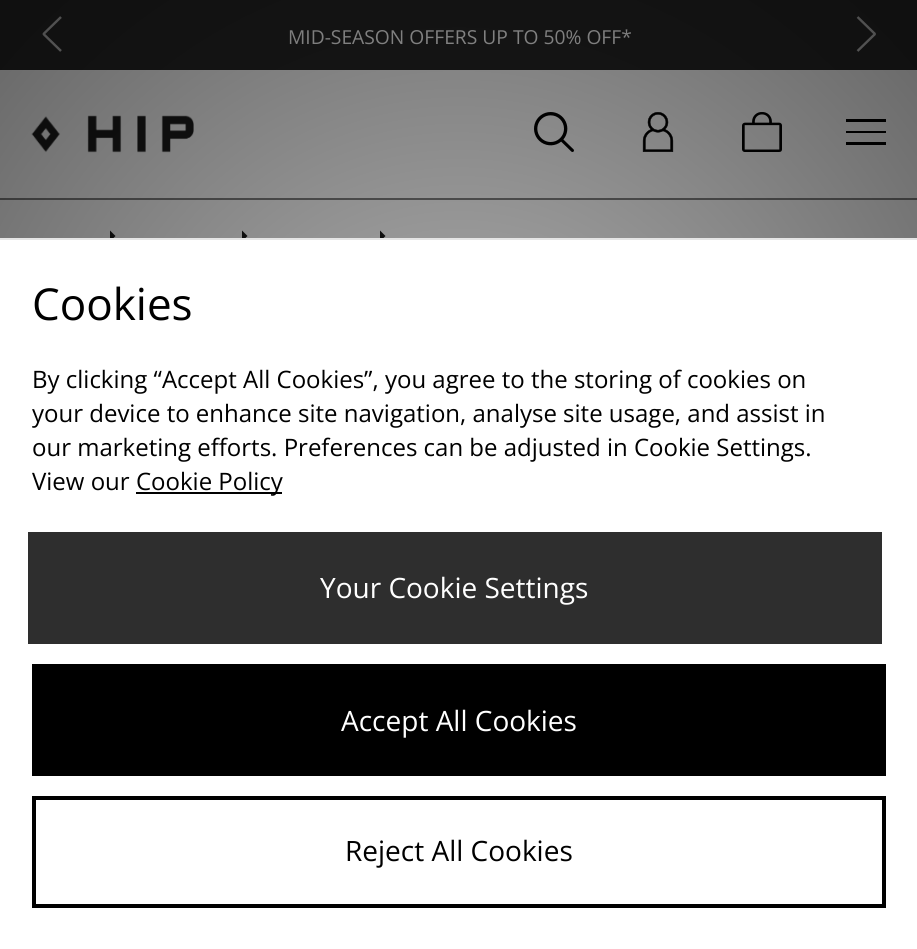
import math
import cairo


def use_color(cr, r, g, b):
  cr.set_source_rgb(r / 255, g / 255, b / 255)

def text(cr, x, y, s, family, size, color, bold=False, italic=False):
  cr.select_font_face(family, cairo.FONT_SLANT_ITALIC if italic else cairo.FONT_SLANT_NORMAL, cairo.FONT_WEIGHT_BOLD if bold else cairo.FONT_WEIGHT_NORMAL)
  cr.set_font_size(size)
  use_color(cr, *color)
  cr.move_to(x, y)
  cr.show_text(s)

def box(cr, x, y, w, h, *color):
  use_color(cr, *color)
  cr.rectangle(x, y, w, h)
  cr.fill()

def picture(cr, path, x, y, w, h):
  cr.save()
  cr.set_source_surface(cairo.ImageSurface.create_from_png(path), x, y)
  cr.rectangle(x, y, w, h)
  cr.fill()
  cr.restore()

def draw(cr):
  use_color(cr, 255, 255, 255)
  cr.paint()
  box(cr, 0, 0, 917, 70, 39, 39, 39)
  cr.new_path()
  cr.move_to(61, 17)
  cr.line_to(43.5, 34)
  cr.line_to(61, 51)
  use_color(cr, 190, 190, 190)
  cr.set_line_width(2.4)
  cr.set_line_join(cairo.LINE_JOIN_BEVEL)
  cr.stroke()
  cr.new_path()
  cr.move_to(857.5, 51)
  cr.line_to(875, 34)
  cr.line_to(857.5, 17)
  cr.stroke()
  box(cr, 0, 198, 917, 2, 128, 128, 128)
  picture(cr, "img_01.png", 31, 115, 163, 38)
  picture(cr, "img_02.png", 534, 112, 40, 40)
  picture(cr, "img_03.png", 642, 112, 32, 40)
  picture(cr, "img_04.png", 742, 112, 40, 40)
  use_color(cr, 0, 0, 0)
  cr.new_path()
  cr.move_to(886, 142)
  cr.line_to(886, 145)
  cr.line_to(846, 145)
  cr.line_to(846, 142)
  cr.close_path()
  cr.move_to(886, 131)
  cr.line_to(886, 133)
  cr.line_to(846, 133)
  cr.line_to(846, 131)
  cr.close_path()
  cr.move_to(886, 119)
  cr.line_to(886, 122)
  cr.line_to(846, 122)
  cr.line_to(846, 119)
  cr.close_path()
  cr.fill()
  use_color(cr, 26, 26, 26)
  cr.new_path()
  cr.move_to(110, 230.5)
  cr.line_to(115.5, 236)
  cr.line_to(110, 236)
  cr.close_path()
  cr.move_to(115.5, 236)
  cr.line_to(110, 241.5)
  cr.line_to(110, 236)
  cr.close_path()
  cr.fill()
  cr.new_path()
  cr.move_to(242, 230.5)
  cr.line_to(247.5, 236)
  cr.line_to(242, 236)
  cr.close_path()
  cr.move_to(247.5, 236)
  cr.line_to(242, 241.5)
  cr.line_to(242, 236)
  cr.close_path()
  cr.fill()
  cr.new_path()
  cr.move_to(380, 230.5)
  cr.line_to(385.5, 236)
  cr.line_to(380, 236)
  cr.close_path()
  cr.move_to(385.5, 236)
  cr.line_to(380, 241.5)
  cr.line_to(380, 236)
  cr.close_path()
  cr.fill()
  box(cr, 110, 240, 272, 2, 255, 255, 255)
  box(cr, 0, 238, 917, 2, 229, 229, 229)
  box(cr, 136, 492, 146, 2, 0, 0, 0)
  box(cr, 28, 532, 854, 112, 46, 46, 46)
  box(cr, 32, 664, 854, 112, 0, 0, 0)
  cr.rectangle(34, 798, 850, 108)
  cr.set_line_width(4)
  cr.set_line_join(cairo.LINE_JOIN_MITER)
  cr.stroke()
  text(cr, 288, 44, "MID-SEASON OFFERS UP TO 50% OFF*", "Open Sans", 19.25, (255, 255, 255))
  gradient = cairo.RadialGradient(0, 0, 0, 0, 0, 1)
  gradient.set_matrix(cairo.Matrix(1 / 649, 0, 0, 1 / 672, -1 * 459 / 649, -1 * 475 / 672))
  gradient.add_color_stop_rgba(0, 0, 0, 0, 0.3)
  gradient.add_color_stop_rgba(1, 0, 0, 0, 0.6)
  cr.set_source(gradient)
  cr.rectangle(0, 0, 917, 238)
  cr.fill()
  text(cr, 32, 320, "Cookies", "Open Sans", 44, (0, 0, 0))
  text(cr, 32, 388, "By clicking “Accept All Cookies”, you agree to the storing of cookies on", "Open Sans", 24, (0, 0, 0))
  text(cr, 32, 422, "your device to enhance site navigation, analyse site usage, and assist in", "Open Sans", 24, (0, 0, 0))
  text(cr, 32, 456, "our marketing efforts. Preferences can be adjusted in Cookie Settings.", "Open Sans", 24, (0, 0, 0))
  text(cr, 32, 490, "View our", "Open Sans", 24, (0, 0, 0))
  text(cr, 136, 490, "Cookie Policy", "Open Sans", 24, (0, 0, 0))
  text(cr, 320, 598, "Your Cookie Settings", "Open Sans", 28, (255, 255, 255))
  text(cr, 341, 731, "Accept All Cookies", "Open Sans", 28, (255, 255, 255))
  text(cr, 345, 861, "Reject All Cookies", "Open Sans", 28, (0, 0, 0))


surface = cairo.ImageSurface(cairo.FORMAT_RGB24, 917, 949)
cr = cairo.Context(surface)
options = cairo.FontOptions()
options.set_hint_metrics(cairo.HINT_METRICS_OFF)
options.set_hint_style(cairo.HINT_STYLE_NONE)
cr.set_font_options(options)
cr.set_miter_limit(4)
draw(cr)
surface.write_to_png("out.png")
